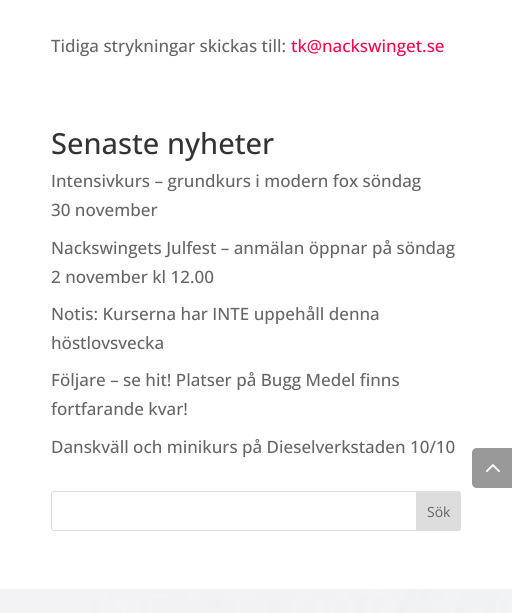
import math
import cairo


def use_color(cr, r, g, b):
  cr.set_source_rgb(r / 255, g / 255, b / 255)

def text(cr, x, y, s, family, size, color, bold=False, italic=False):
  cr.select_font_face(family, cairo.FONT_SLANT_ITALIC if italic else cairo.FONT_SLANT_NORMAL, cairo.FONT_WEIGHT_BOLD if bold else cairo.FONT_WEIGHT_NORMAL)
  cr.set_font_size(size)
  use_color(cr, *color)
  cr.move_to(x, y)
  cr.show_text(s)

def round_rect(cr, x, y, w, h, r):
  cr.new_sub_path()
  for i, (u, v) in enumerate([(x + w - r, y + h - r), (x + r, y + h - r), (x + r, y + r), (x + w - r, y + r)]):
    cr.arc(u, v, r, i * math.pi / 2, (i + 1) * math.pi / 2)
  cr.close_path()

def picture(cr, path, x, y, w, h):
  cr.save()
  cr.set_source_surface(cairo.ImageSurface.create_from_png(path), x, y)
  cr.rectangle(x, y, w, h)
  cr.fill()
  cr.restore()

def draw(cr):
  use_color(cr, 255, 255, 255)
  cr.paint()
  picture(cr, "img_01.png", 0, 589, 512, 24)
  round_rect(cr, 51.5, 491.5, 409, 39, 2.5)
  use_color(cr, 221, 221, 221)
  cr.set_line_width(1)
  cr.stroke()
  cr.new_path()
  cr.move_to(416.5, 491.5)
  cr.line_to(458, 491.5)
  cr.curve_to(459.5, 491.5, 460.5, 492.5, 460.5, 494)
  cr.line_to(460.5, 528)
  cr.curve_to(460.5, 529.5, 459.5, 530.5, 458, 530.5)
  cr.line_to(416.5, 530.5)
  cr.close_path()
  cr.fill_preserve()
  cr.stroke()
  use_color(cr, 153, 153, 153)
  cr.new_path()
  cr.move_to(477, 448)
  cr.line_to(512, 448)
  cr.line_to(512, 488)
  cr.line_to(477, 488)
  cr.curve_to(474, 488, 472, 486, 472, 483)
  cr.line_to(472, 453)
  cr.curve_to(472, 450, 474, 448, 477, 448)
  cr.close_path()
  cr.fill()
  picture(cr, "img_02.png", 486, 464, 14, 8)
  text(cr, 51, 52, "Tidiga strykningar skickas till:", "Open Sans Medium", 17, (102, 102, 102))
  text(cr, 291, 52, "tk@nackswinget.se", "Open Sans Medium", 17, (249, 6, 75))
  text(cr, 51, 154, "Senaste nyheter", "Open Sans Medium", 29, (51, 51, 51))
  text(cr, 51, 187, "Intensivkurs – grundkurs i modern fox söndag", "Open Sans Medium", 17, (102, 102, 102))
  text(cr, 51, 216, "30 november", "Open Sans Medium", 17, (102, 102, 102))
  text(cr, 51, 254, "Nackswingets Julfest – anmälan öppnar på söndag", "Open Sans Medium", 17, (102, 102, 102))
  text(cr, 51, 283, "2 november kl 12.00", "Open Sans Medium", 17, (102, 102, 102))
  text(cr, 51, 320, "Notis: Kurserna har INTE uppehåll denna", "Open Sans Medium", 17, (102, 102, 102))
  text(cr, 51, 349, "höstlovsvecka", "Open Sans Medium", 17, (102, 102, 102))
  text(cr, 51, 386, "Följare – se hit! Platser på Bugg Medel finns", "Open Sans Medium", 17, (102, 102, 102))
  text(cr, 51, 415, "fortfarande kvar!", "Open Sans Medium", 17, (102, 102, 102))
  text(cr, 51, 453, "Danskväll och minikurs på Dieselverkstaden 10/10", "Open Sans Medium", 17, (102, 102, 102))
  text(cr, 427, 517, "Sök", "Open Sans", 14, (102, 102, 102))


surface = cairo.ImageSurface(cairo.FORMAT_RGB24, 512, 613)
cr = cairo.Context(surface)
options = cairo.FontOptions()
options.set_hint_metrics(cairo.HINT_METRICS_OFF)
options.set_hint_style(cairo.HINT_STYLE_NONE)
cr.set_font_options(options)
cr.set_miter_limit(4)
draw(cr)
surface.write_to_png("out.png")
